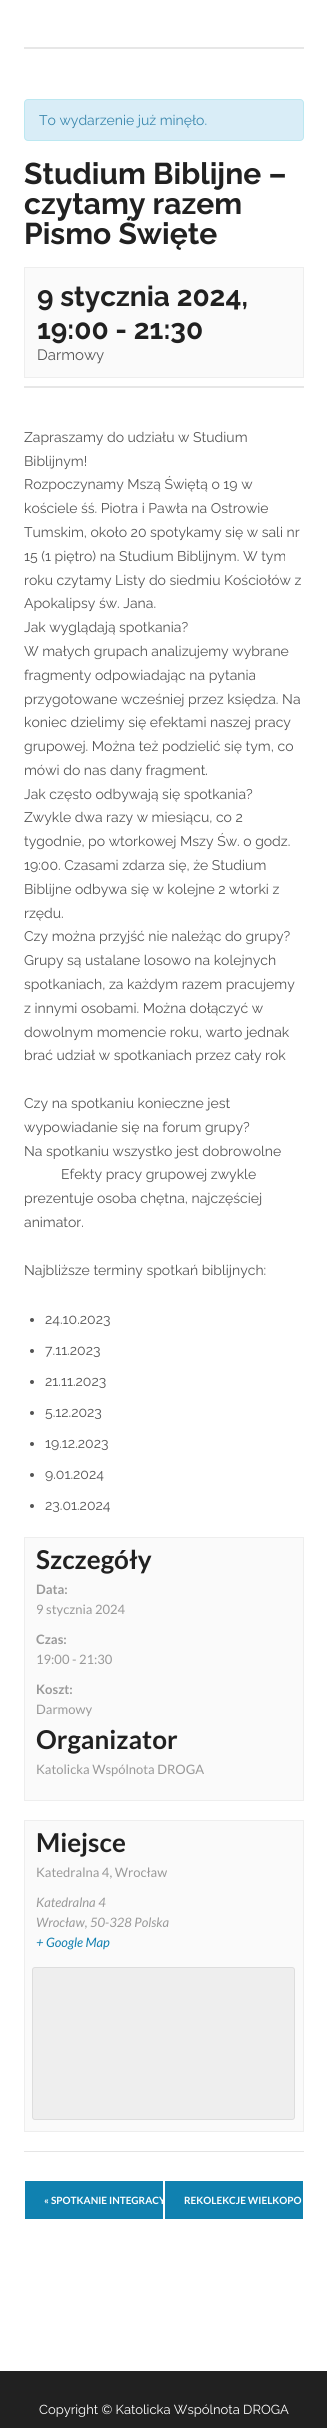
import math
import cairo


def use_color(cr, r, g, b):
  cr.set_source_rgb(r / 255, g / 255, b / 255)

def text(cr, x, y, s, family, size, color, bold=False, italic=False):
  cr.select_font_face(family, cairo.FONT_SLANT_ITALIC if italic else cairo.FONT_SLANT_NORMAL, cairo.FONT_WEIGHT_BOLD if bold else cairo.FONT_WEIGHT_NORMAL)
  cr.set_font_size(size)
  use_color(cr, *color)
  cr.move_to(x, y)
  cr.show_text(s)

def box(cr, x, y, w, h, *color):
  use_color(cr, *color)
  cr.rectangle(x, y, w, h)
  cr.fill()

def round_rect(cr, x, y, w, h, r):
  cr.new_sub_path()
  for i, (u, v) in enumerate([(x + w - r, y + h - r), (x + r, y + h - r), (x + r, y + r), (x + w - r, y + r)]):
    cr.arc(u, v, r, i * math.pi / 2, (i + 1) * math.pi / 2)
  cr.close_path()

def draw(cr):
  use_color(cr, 255, 255, 255)
  cr.paint()
  box(cr, 24, 47, 280, 2, 231, 231, 231)
  use_color(cr, 217, 237, 247)
  round_rect(cr, 24.5, 99.5, 279, 41, 3.5)
  cr.fill_preserve()
  use_color(cr, 188, 232, 241)
  cr.set_line_width(1)
  cr.stroke()
  use_color(cr, 250, 250, 250)
  cr.rectangle(24.5, 267.5, 279, 110)
  cr.fill_preserve()
  use_color(cr, 238, 238, 238)
  cr.stroke()
  box(cr, 24, 386, 280, 2, 231, 231, 231)
  use_color(cr, 85, 85, 85)
  cr.arc(32, 1320, 2, 0, 2 * math.pi)
  cr.fill()
  cr.arc(32, 1351, 2, 0, 2 * math.pi)
  cr.fill()
  cr.arc(32, 1382, 2, 0, 2 * math.pi)
  cr.fill()
  cr.arc(32, 1413, 2, 0, 2 * math.pi)
  cr.fill()
  cr.arc(32, 1444, 2, 0, 2 * math.pi)
  cr.fill()
  cr.arc(32, 1475, 2, 0, 2 * math.pi)
  cr.fill()
  cr.arc(32, 1506, 2, 0, 2 * math.pi)
  cr.fill()
  use_color(cr, 250, 250, 250)
  cr.rectangle(24.5, 1537.5, 279, 263)
  cr.fill_preserve()
  use_color(cr, 238, 238, 238)
  cr.stroke()
  use_color(cr, 250, 250, 250)
  cr.rectangle(24.5, 1820.5, 279, 311)
  cr.fill_preserve()
  use_color(cr, 238, 238, 238)
  cr.stroke()
  round_rect(cr, 32.5, 1967.5, 262, 152, 2.5)
  cr.fill_preserve()
  use_color(cr, 221, 221, 221)
  cr.stroke()
  box(cr, 24, 2151, 280, 1, 229, 229, 229)
  box(cr, 25, 2181, 138, 38, 16, 129, 176)
  box(cr, 165, 2181, 138, 38, 16, 129, 176)
  box(cr, 0, 2371, 327, 57, 33, 33, 33)
  text(cr, 39, 125, "To wydarzenie już minęło.", "Raleway", 14, (58, 135, 173))
  text(cr, 24, 184, "Studium Biblijne –", "Raleway", 30, (33, 33, 33), bold=True)
  text(cr, 24, 214, "czytamy razem", "Raleway", 30, (33, 33, 33), bold=True)
  text(cr, 24, 244, "Pismo Święte", "Raleway", 30, (33, 33, 33), bold=True)
  text(cr, 37, 306, "9 stycznia 2024,", "Raleway", 28, (33, 33, 33), bold=True)
  text(cr, 37, 339, "19:00 - 21:30", "Raleway", 28, (33, 33, 33), bold=True)
  text(cr, 37, 360, "Darmowy", "Raleway", 15, (85, 85, 85))
  text(cr, 24, 442, "Zapraszamy do udziału w Studium", "Raleway", 14, (85, 85, 85))
  text(cr, 24, 466, "Biblijnym!", "Raleway", 14, (85, 85, 85))
  text(cr, 24, 489, "Rozpoczynamy Mszą Świętą o 19 w", "Raleway", 14, (85, 85, 85))
  text(cr, 24, 513, "kościele śś. Piotra i Pawła na Ostrowie", "Raleway", 14, (85, 85, 85))
  text(cr, 24, 537, "Tumskim, około 20 spotykamy się w sali nr", "Raleway", 14, (85, 85, 85))
  text(cr, 24, 561, "15 (1 piętro) na Studium Biblijnym. W tym", "Raleway", 14, (85, 85, 85))
  text(cr, 24, 585, "roku czytamy Listy do siedmiu Kościołów z", "Raleway", 14, (85, 85, 85))
  text(cr, 24, 608, "Apokalipsy św. Jana.", "Raleway", 14, (85, 85, 85))
  text(cr, 24, 632, "Jak wyglądają spotkania?", "Raleway", 14, (85, 85, 85))
  text(cr, 24, 656, "W małych grupach analizujemy wybrane", "Raleway", 14, (85, 85, 85))
  text(cr, 24, 680, "fragmenty odpowiadając na pytania", "Raleway", 14, (85, 85, 85))
  text(cr, 24, 704, "przygotowane wcześniej przez księdza. Na", "Raleway", 14, (85, 85, 85))
  text(cr, 24, 727, "koniec dzielimy się efektami naszej pracy", "Raleway", 14, (85, 85, 85))
  text(cr, 24, 751, "grupowej. Można też podzielić się tym, co", "Raleway", 14, (85, 85, 85))
  text(cr, 24, 775, "mówi do nas dany fragment.", "Raleway", 14, (85, 85, 85))
  text(cr, 24, 799, "Jak często odbywają się spotkania?", "Raleway", 14, (85, 85, 85))
  text(cr, 24, 822, "Zwykle dwa razy w miesiącu, co 2", "Raleway", 14, (85, 85, 85))
  text(cr, 24, 846, "tygodnie, po wtorkowej Mszy Św. o godz.", "Raleway", 14, (85, 85, 85))
  text(cr, 24, 870, "19:00. Czasami zdarza się, że Studium", "Raleway", 14, (85, 85, 85))
  text(cr, 24, 894, "Biblijne odbywa się w kolejne 2 wtorki z", "Raleway", 14, (85, 85, 85))
  text(cr, 24, 918, "rzędu.", "Raleway", 14, (85, 85, 85))
  text(cr, 24, 941, "Czy można przyjść nie należąc do grupy?", "Raleway", 14, (85, 85, 85))
  text(cr, 24, 965, "Grupy są ustalane losowo na kolejnych", "Raleway", 14, (85, 85, 85))
  text(cr, 24, 989, "spotkaniach, za każdym razem pracujemy", "Raleway", 14, (85, 85, 85))
  text(cr, 24, 1013, "z innymi osobami. Można dołączyć w", "Raleway", 14, (85, 85, 85))
  text(cr, 24, 1037, "dowolnym momencie roku, warto jednak", "Raleway", 14, (85, 85, 85))
  text(cr, 24, 1060, "brać udział w spotkaniach przez cały rok", "Raleway", 14, (85, 85, 85))
  text(cr, 24, 1108, "Czy na spotkaniu konieczne jest", "Raleway", 14, (85, 85, 85))
  text(cr, 24, 1132, "wypowiadanie się na forum grupy?", "Raleway", 14, (85, 85, 85))
  text(cr, 24, 1156, "Na spotkaniu wszystko jest dobrowolne", "Raleway", 14, (85, 85, 85))
  text(cr, 61, 1179, "Efekty pracy grupowej zwykle", "Raleway", 14, (85, 85, 85))
  text(cr, 24, 1203, "prezentuje osoba chętna, najczęściej", "Raleway", 14, (85, 85, 85))
  text(cr, 24, 1227, "animator.", "Raleway", 14, (85, 85, 85))
  text(cr, 24, 1275, "Najbliższe terminy spotkań biblijnych:", "Raleway", 14, (85, 85, 85))
  text(cr, 45, 1324, "24.10.2023", "Raleway", 14, (85, 85, 85))
  text(cr, 45, 1355, "7.11.2023", "Raleway", 14, (85, 85, 85))
  text(cr, 45, 1386, "21.11.2023", "Raleway", 14, (85, 85, 85))
  text(cr, 45, 1417, "5.12.2023", "Raleway", 14, (85, 85, 85))
  text(cr, 45, 1448, "19.12.2023", "Raleway", 14, (85, 85, 85))
  text(cr, 45, 1479, "9.01.2024", "Raleway", 14, (85, 85, 85))
  text(cr, 45, 1510, "23.01.2024", "Raleway", 14, (85, 85, 85))
  text(cr, 36, 1569, "Szczegóły", "Lato", 26, (33, 33, 33), bold=True)
  text(cr, 36, 1594, "Data:", "Lato", 13, (153, 153, 153), bold=True)
  text(cr, 36, 1614, "9 stycznia 2024", "Lato", 13, (153, 153, 153))
  text(cr, 36, 1644, "Czas:", "Lato", 13, (153, 153, 153), bold=True)
  text(cr, 36, 1664, "19:00 - 21:30", "Lato", 13, (153, 153, 153))
  text(cr, 36, 1694, "Koszt:", "Lato", 13, (153, 153, 153), bold=True)
  text(cr, 36, 1714, "Darmowy", "Lato", 13, (153, 153, 153))
  text(cr, 36, 1749, "Organizator", "Lato", 26, (33, 33, 33), bold=True)
  text(cr, 36, 1774, "Katolicka Wspólnota DROGA", "Lato", 13, (153, 153, 153))
  text(cr, 36, 1852, "Miejsce", "Lato", 26, (33, 33, 33), bold=True)
  text(cr, 36, 1877, "Katedralna 4, Wrocław", "Lato", 13, (153, 153, 153))
  text(cr, 36, 1907, "Katedralna 4", "Lato", 13, (153, 153, 153), italic=True)
  text(cr, 36, 1927, "Wrocław, 50-328 Polska", "Lato", 13, (153, 153, 153), italic=True)
  text(cr, 36, 1947, "+ Google Map", "Lato", 13, (16, 127, 176), italic=True)
  text(cr, 44, 2204, "«", "Lato", 10, (255, 255, 255), bold=True)
  cr.save()
  cr.rectangle(25, 2181, 138, 38)
  cr.clip()
  text(cr, 51, 2204, "SPOTKANIE INTEGRACY", "Lato", 10, (255, 255, 255), bold=True)
  cr.restore()
  text(cr, 184, 2204, "REKOLEKCJE WIELKOPO", "Lato", 10, (255, 255, 255), bold=True)
  text(cr, 39, 2414, "Copyright © Katolicka Wspólnota DROGA", "Raleway", 13, (255, 255, 255))


surface = cairo.ImageSurface(cairo.FORMAT_RGB24, 327, 2428)
cr = cairo.Context(surface)
options = cairo.FontOptions()
options.set_hint_metrics(cairo.HINT_METRICS_OFF)
options.set_hint_style(cairo.HINT_STYLE_NONE)
cr.set_font_options(options)
cr.set_miter_limit(4)
draw(cr)
surface.write_to_png("out.png")
